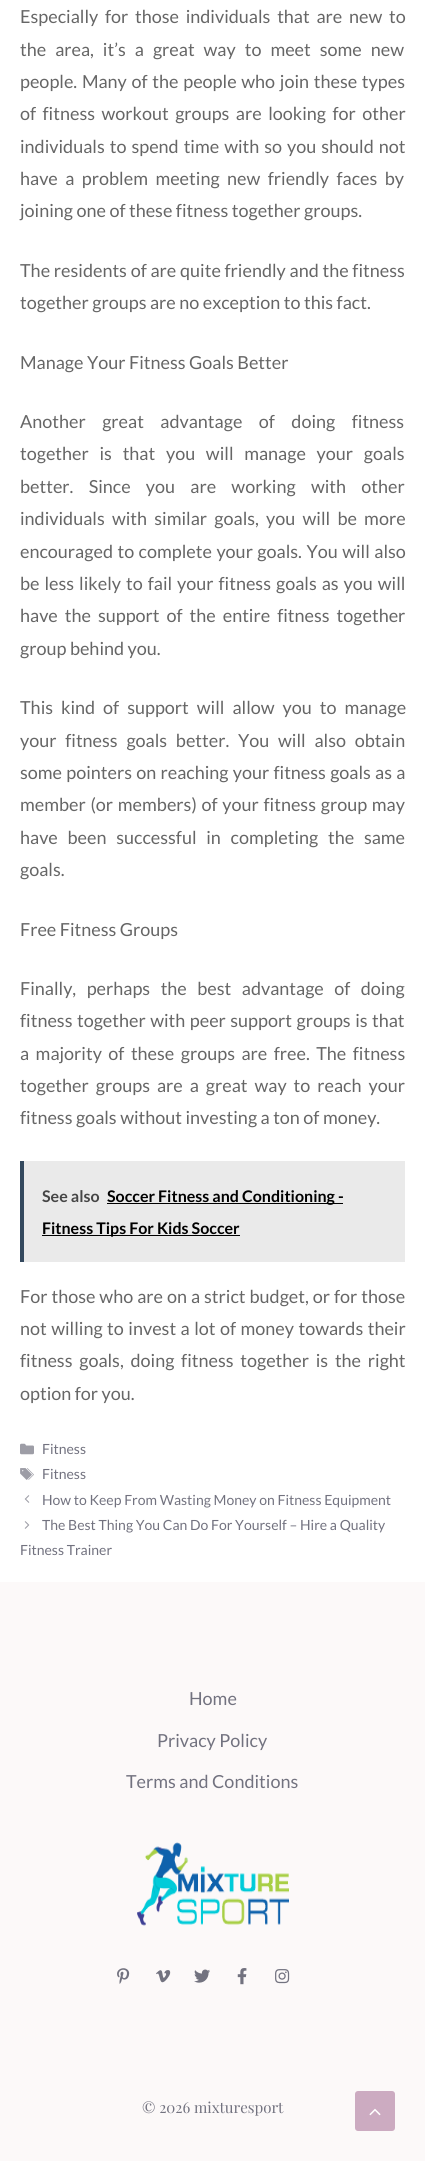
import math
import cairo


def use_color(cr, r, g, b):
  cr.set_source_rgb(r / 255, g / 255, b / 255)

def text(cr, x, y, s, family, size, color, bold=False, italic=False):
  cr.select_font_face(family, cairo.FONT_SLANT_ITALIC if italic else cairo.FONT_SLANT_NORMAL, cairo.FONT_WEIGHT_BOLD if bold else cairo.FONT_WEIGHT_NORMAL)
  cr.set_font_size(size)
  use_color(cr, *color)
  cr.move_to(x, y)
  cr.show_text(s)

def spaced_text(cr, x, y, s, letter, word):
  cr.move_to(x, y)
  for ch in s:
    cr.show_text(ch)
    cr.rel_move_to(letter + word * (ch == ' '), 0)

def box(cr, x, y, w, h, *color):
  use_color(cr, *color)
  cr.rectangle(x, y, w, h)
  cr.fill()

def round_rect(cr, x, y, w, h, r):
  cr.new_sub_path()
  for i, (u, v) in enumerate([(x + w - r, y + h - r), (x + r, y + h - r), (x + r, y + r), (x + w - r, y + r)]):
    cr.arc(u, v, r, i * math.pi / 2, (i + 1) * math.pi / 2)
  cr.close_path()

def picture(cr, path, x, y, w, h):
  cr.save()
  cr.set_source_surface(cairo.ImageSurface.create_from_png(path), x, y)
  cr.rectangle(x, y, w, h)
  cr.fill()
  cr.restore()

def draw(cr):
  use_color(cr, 255, 255, 255)
  cr.paint()
  box(cr, 24, 1161, 381, 101, 234, 234, 234)
  box(cr, 20, 1161, 4, 101, 52, 73, 94)
  box(cr, 107, 1203, 236, 1, 0, 0, 0)
  box(cr, 42, 1235, 198, 1, 0, 0, 0)
  picture(cr, "img_01.png", 20, 1443, 14, 12)
  picture(cr, "img_02.png", 20, 1468, 14, 12)
  picture(cr, "img_03.png", 24, 1495, 6, 8)
  picture(cr, "img_04.png", 24, 1521, 6, 8)
  box(cr, 0, 1582, 425, 579, 252, 249, 249)
  picture(cr, "img_05.png", 137, 1842, 152, 84)
  picture(cr, "img_06.png", 117, 1968, 13, 16)
  picture(cr, "img_07.png", 156, 1970, 15, 13)
  picture(cr, "img_08.png", 194, 1969, 16, 14)
  picture(cr, "img_09.png", 237, 1968, 10, 17)
  picture(cr, "img_10.png", 275, 1969, 15, 15)
  use_color(cr, 204, 171, 193)
  round_rect(cr, 355, 2091, 40, 40, 3)
  cr.fill()
  picture(cr, "img_11.png", 369, 2108, 12, 8)
  cr.select_font_face("Lato")
  cr.set_font_size(18)
  use_color(cr, 102, 102, 102)
  spaced_text(cr, 20, 23, "Especially for those individuals that are new to", 0, 3.25)
  spaced_text(cr, 20, 56, "the area, it’s a great way to meet some new", 0, 5.5)
  spaced_text(cr, 20, 88, "people. Many of the people who join these types", 0, 1.25)
  spaced_text(cr, 20, 120, "of fitness workout groups are looking for other", 0, 3)
  spaced_text(cr, 20, 153, "individuals to spend time with so you should not", 0, 1.5)
  spaced_text(cr, 20, 185, "have a problem meeting new friendly faces by", 0, 4)
  text(cr, 20, 217, "joining one of these fitness together groups.", "Lato", 18, (102, 102, 102))
  spaced_text(cr, 20, 277, "The residents of are quite friendly and the fitness", 0, 0.25)
  text(cr, 20, 309, "together groups are no exception to this fact.", "Lato", 18, (102, 102, 102))
  text(cr, 20, 369, "Manage Your Fitness Goals Better", "Lato", 18, (102, 102, 102))
  spaced_text(cr, 20, 428, "Another great advantage of doing fitness", 0, 13)
  spaced_text(cr, 20, 460, "together is that you will manage your goals", 0, 7.25)
  spaced_text(cr, 20, 493, "better. Since you are working with other", 0, 11.75)
  spaced_text(cr, 20, 525, "individuals with similar goals, you will be more", 0, 3.75)
  spaced_text(cr, 20, 558, "encouraged to complete your goals. You will also", 0, 1)
  spaced_text(cr, 20, 590, "be less likely to fail your fitness goals as you will", 0, 1.5)
  spaced_text(cr, 20, 622, "have the support of the entire fitness together", 0, 3.5)
  text(cr, 20, 655, "group behind you.", "Lato", 18, (102, 102, 102))
  spaced_text(cr, 20, 714, "This kind of support will allow you to manage", 0, 4.5)
  spaced_text(cr, 20, 747, "your fitness goals better. You will also obtain", 0, 5.25)
  spaced_text(cr, 20, 779, "some pointers on reaching your fitness goals as a", 0, 0.75)
  spaced_text(cr, 20, 811, "member (or members) of your fitness group may", 0, 1.25)
  spaced_text(cr, 20, 844, "have been successful in completing the same", 0, 6.25)
  text(cr, 20, 876, "goals.", "Lato", 18, (102, 102, 102))
  text(cr, 20, 936, "Free Fitness Groups", "Lato", 18, (102, 102, 102))
  spaced_text(cr, 20, 995, "Finally, perhaps the best advantage of doing", 0, 7)
  spaced_text(cr, 20, 1027, "fitness together with peer support groups is that", 0, 1)
  spaced_text(cr, 20, 1060, "a majority of these groups are free. The fitness", 0, 3)
  spaced_text(cr, 20, 1092, "together groups are a great way to reach your", 0, 3.5)
  text(cr, 20, 1124, "fitness goals without investing a ton of money.", "Lato", 18, (102, 102, 102))
  text(cr, 42, 1202, "See also", "Lato", 16, (70, 70, 70), bold=True)
  text(cr, 107, 1202, "Soccer Fitness and Conditioning -", "Lato", 16, (0, 0, 0), bold=True)
  text(cr, 42, 1234, "Fitness Tips For Kids Soccer", "Lato", 16, (0, 0, 0), bold=True)
  cr.select_font_face("Lato")
  cr.set_font_size(18)
  use_color(cr, 102, 102, 102)
  spaced_text(cr, 20, 1303, "For those who are on a strict budget, or for those", 0, 0.5)
  spaced_text(cr, 20, 1335, "not willing to invest a lot of money towards their", 0, 1)
  spaced_text(cr, 20, 1367, "fitness goals, doing fitness together is the right", 0, 3.25)
  text(cr, 20, 1400, "option for you.", "Lato", 18, (102, 102, 102))
  text(cr, 42, 1454, "Fitness", "Lato", 14, (114, 114, 127))
  text(cr, 42, 1479, "Fitness", "Lato", 14, (114, 114, 127))
  text(cr, 42, 1505, "How to Keep From Wasting Money on Fitness Equipment", "Lato", 14, (114, 114, 127))
  text(cr, 42, 1530, "The Best Thing You Can Do For Yourself – Hire a Quality", "Lato", 14, (114, 114, 127))
  text(cr, 20, 1555, "Fitness Trainer", "Lato", 14, (114, 114, 127))
  text(cr, 189, 1705, "Home", "Lato", 18, (114, 114, 127))
  text(cr, 157, 1747, "Privacy Policy", "Lato", 18, (114, 114, 127))
  text(cr, 126, 1788, "Terms and Conditions", "Lato", 18, (114, 114, 127))
  text(cr, 142, 2113, "© 2026 mixturesport", "Playfair Display", 15, (114, 114, 127))


surface = cairo.ImageSurface(cairo.FORMAT_RGB24, 425, 2161)
cr = cairo.Context(surface)
options = cairo.FontOptions()
options.set_hint_metrics(cairo.HINT_METRICS_OFF)
options.set_hint_style(cairo.HINT_STYLE_NONE)
cr.set_font_options(options)
cr.set_miter_limit(4)
draw(cr)
surface.write_to_png("out.png")
